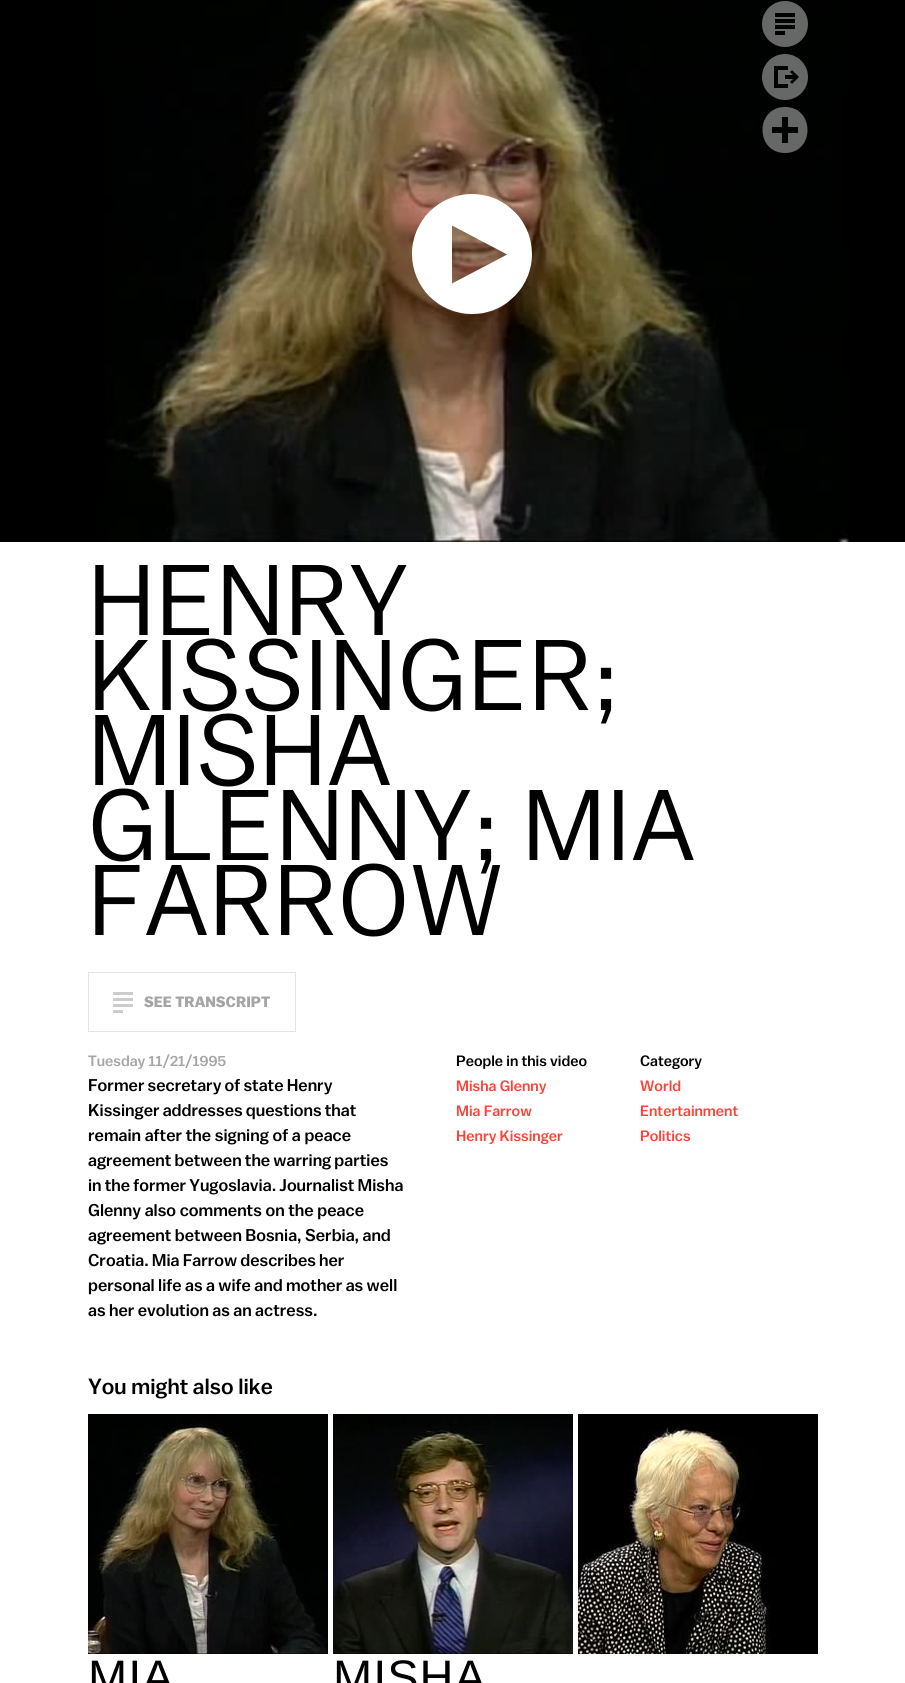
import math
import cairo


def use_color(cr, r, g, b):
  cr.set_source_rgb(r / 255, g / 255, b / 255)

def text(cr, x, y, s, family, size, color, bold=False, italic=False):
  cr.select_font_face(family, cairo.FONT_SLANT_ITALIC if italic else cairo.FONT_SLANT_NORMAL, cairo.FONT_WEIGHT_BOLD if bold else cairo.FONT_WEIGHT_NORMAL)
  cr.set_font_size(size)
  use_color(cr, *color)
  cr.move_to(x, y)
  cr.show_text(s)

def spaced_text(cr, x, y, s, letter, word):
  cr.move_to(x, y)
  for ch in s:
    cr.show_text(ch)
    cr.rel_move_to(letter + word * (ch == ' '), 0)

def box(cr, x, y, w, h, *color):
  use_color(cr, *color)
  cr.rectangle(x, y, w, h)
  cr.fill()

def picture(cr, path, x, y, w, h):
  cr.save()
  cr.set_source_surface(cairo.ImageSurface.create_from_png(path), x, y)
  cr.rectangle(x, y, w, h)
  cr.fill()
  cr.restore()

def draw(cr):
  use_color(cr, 255, 255, 255)
  cr.paint()
  box(cr, 0, 0, 105, 542, 0, 0, 0)
  picture(cr, "img_01.png", 105, 0, 745, 542)
  box(cr, 850, 0, 55, 542, 0, 0, 0)
  picture(cr, "img_02.png", 762, 1, 46, 46)
  picture(cr, "img_03.png", 762, 54, 46, 46)
  use_color(cr, 102, 103, 103)
  cr.new_path()
  cr.move_to(785, 107)
  cr.curve_to(755, 107, 755, 153, 785, 153)
  cr.curve_to(815, 153, 815, 107, 785, 107)
  cr.close_path()
  cr.move_to(798, 133)
  cr.line_to(788, 133)
  cr.line_to(788, 143)
  cr.line_to(782, 143)
  cr.line_to(782, 133)
  cr.line_to(772, 133)
  cr.line_to(772, 127)
  cr.line_to(782, 127)
  cr.line_to(782, 117)
  cr.line_to(788, 117)
  cr.line_to(788, 127)
  cr.line_to(798, 127)
  cr.close_path()
  cr.fill()
  use_color(cr, 204, 204, 204)
  cr.new_path()
  cr.move_to(500, 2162)
  cr.line_to(520, 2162)
  cr.line_to(520, 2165)
  cr.line_to(500, 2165)
  cr.close_path()
  cr.move_to(500, 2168)
  cr.line_to(520, 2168)
  cr.line_to(520, 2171)
  cr.line_to(500, 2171)
  cr.close_path()
  cr.move_to(500, 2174)
  cr.line_to(520, 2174)
  cr.line_to(520, 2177)
  cr.line_to(500, 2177)
  cr.close_path()
  cr.move_to(500, 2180)
  cr.line_to(510, 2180)
  cr.line_to(510, 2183)
  cr.line_to(500, 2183)
  cr.close_path()
  cr.move_to(113, 992)
  cr.line_to(133, 992)
  cr.line_to(133, 995)
  cr.line_to(113, 995)
  cr.close_path()
  cr.move_to(113, 998)
  cr.line_to(133, 998)
  cr.line_to(133, 1001)
  cr.line_to(113, 1001)
  cr.close_path()
  cr.move_to(113, 1004)
  cr.line_to(133, 1004)
  cr.line_to(133, 1007)
  cr.line_to(113, 1007)
  cr.close_path()
  cr.move_to(113, 1010)
  cr.line_to(123, 1010)
  cr.line_to(123, 1013)
  cr.line_to(113, 1013)
  cr.close_path()
  cr.fill()
  cr.rectangle(88.5, 972.5, 207, 59)
  use_color(cr, 229, 229, 229)
  cr.set_line_width(1)
  cr.stroke()
  picture(cr, "img_04.png", 578, 1414, 240, 240)
  picture(cr, "img_05.png", 88, 1414, 240, 240)
  picture(cr, "img_06.png", 333, 1414, 240, 240)
  cr.select_font_face("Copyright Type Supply")
  cr.set_font_size(100)
  use_color(cr, 0, 0, 0)
  spaced_text(cr, 88, 635, "HENRY", 1, 0)
  spaced_text(cr, 88, 710, "KISSINGER;", 1, 0)
  spaced_text(cr, 88, 785, "MISHA", 1, 0)
  spaced_text(cr, 88, 860, "GLENNY; MIA", 1, 0)
  spaced_text(cr, 88, 935, "FARROW", 1, 0)
  text(cr, 144, 1007, "SEE TRANSCRIPT", "Copyright Type Supply SemiBold", 15, (165, 165, 165))
  text(cr, 88, 1066, "Tuesday 11/21/1995", "Copyright Type Supply Medium", 15, (165, 165, 165))
  cr.set_font_size(17)
  use_color(cr, 0, 0, 0)
  spaced_text(cr, 88, 1091, "Former secretary of state Henry", 0, -0.5)
  spaced_text(cr, 88, 1116, "Kissinger addresses questions that", 0, -0.5)
  text(cr, 88, 1141, "remain after the signing of a peace", "Copyright Type Supply Medium", 17, (0, 0, 0))
  spaced_text(cr, 88, 1166, "agreement between the warring parties", 0, -0.5)
  spaced_text(cr, 88, 1191, "in the former Yugoslavia. Journalist Misha", 0, -0.5)
  text(cr, 88, 1216, "Glenny also comments on the peace", "Copyright Type Supply Medium", 17, (0, 0, 0))
  spaced_text(cr, 88, 1241, "agreement between Bosnia, Serbia, and", 0, -0.25)
  spaced_text(cr, 88, 1266, "Croatia. Mia Farrow describes her", 0, -0.5)
  spaced_text(cr, 88, 1291, "personal life as a wife and mother as well", 0, -0.25)
  spaced_text(cr, 88, 1316, "as her evolution as an actress.", 0, -0.25)
  text(cr, 456, 1066, "People in this video", "Copyright Type Supply Medium", 15, (0, 0, 0))
  text(cr, 456, 1091, "Misha Glenny", "Copyright Type Supply Medium", 15, (255, 66, 55))
  text(cr, 456, 1116, "Mia Farrow", "Copyright Type Supply Medium", 15, (255, 66, 55))
  text(cr, 456, 1141, "Henry Kissinger", "Copyright Type Supply Medium", 15, (255, 66, 55))
  text(cr, 640, 1066, "Category", "Copyright Type Supply Medium", 15, (0, 0, 0))
  text(cr, 640, 1091, "World", "Copyright Type Supply Medium", 15, (255, 66, 55))
  text(cr, 640, 1116, "Entertainment", "Copyright Type Supply Medium", 15, (255, 66, 55))
  text(cr, 640, 1141, "Politics", "Copyright Type Supply Medium", 15, (255, 66, 55))
  text(cr, 88, 1394, "You might also like", "Copyright Type Supply Medium", 22, (0, 0, 0))
  cr.select_font_face("Liberation Sans")
  cr.set_font_size(47)
  spaced_text(cr, 88, 1693, "MIA", 1, 0)
  spaced_text(cr, 333, 1693, "MISHA", 1, 0)


surface = cairo.ImageSurface(cairo.FORMAT_RGB24, 905, 1683)
cr = cairo.Context(surface)
options = cairo.FontOptions()
options.set_hint_metrics(cairo.HINT_METRICS_OFF)
options.set_hint_style(cairo.HINT_STYLE_NONE)
cr.set_font_options(options)
cr.set_miter_limit(4)
draw(cr)
surface.write_to_png("out.png")
